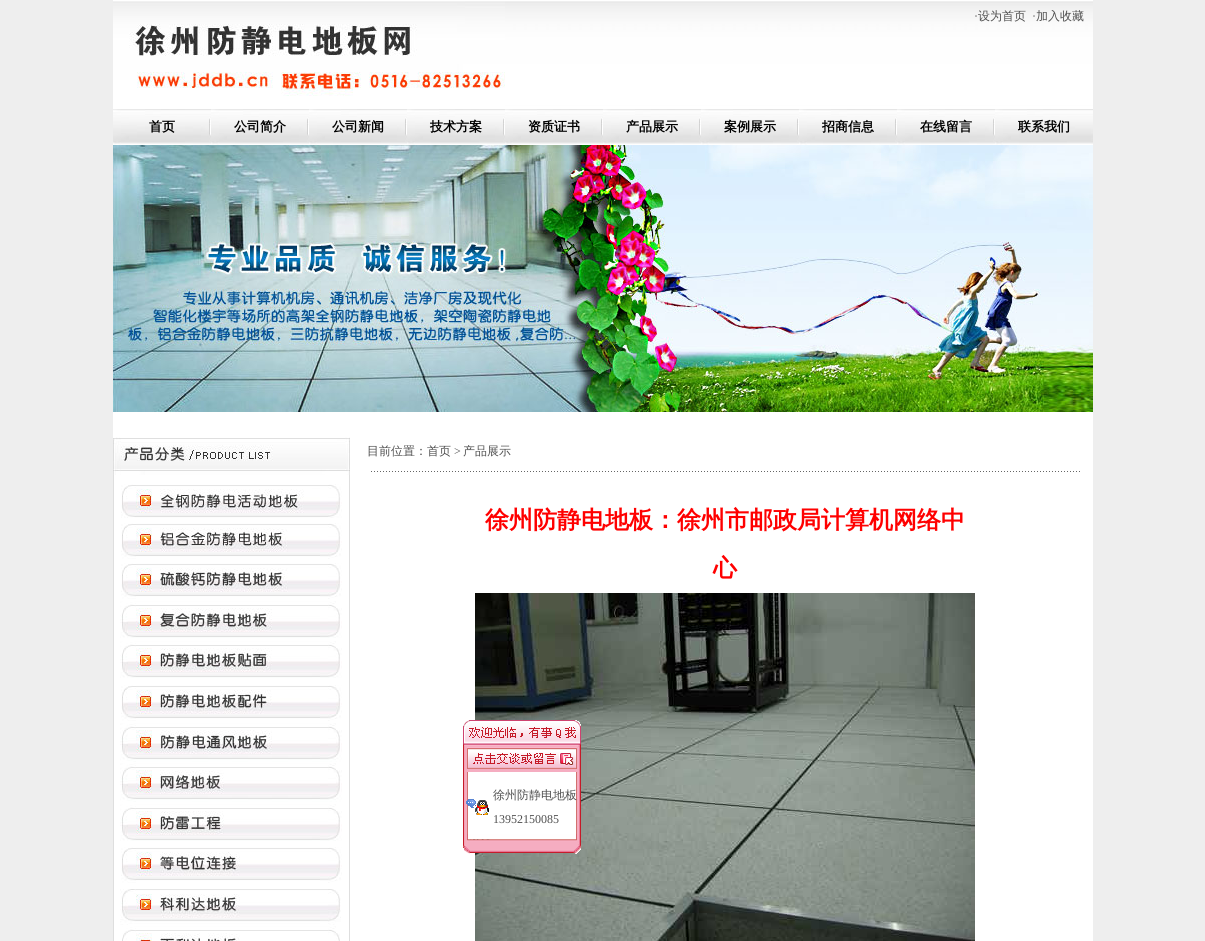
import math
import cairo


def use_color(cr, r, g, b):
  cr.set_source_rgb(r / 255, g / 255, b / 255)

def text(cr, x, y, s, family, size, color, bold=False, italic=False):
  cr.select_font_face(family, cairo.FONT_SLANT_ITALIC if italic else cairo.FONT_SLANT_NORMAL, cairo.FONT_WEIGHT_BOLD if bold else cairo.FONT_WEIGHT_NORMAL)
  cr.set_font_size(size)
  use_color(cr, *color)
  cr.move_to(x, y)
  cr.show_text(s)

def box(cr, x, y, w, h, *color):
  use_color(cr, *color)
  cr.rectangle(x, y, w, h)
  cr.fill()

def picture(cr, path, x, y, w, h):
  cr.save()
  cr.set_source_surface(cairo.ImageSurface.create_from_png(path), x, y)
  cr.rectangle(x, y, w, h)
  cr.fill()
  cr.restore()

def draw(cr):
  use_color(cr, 238, 238, 238)
  cr.paint()
  picture(cr, "img_01.png", 113, 0, 392, 109)
  picture(cr, "img_02.png", 505, 0, 588, 109)
  picture(cr, "img_03.png", 113, 109, 98, 36)
  picture(cr, "img_03.png", 211, 109, 98, 36)
  picture(cr, "img_03.png", 309, 109, 98, 36)
  picture(cr, "img_03.png", 407, 109, 98, 36)
  picture(cr, "img_03.png", 505, 109, 98, 36)
  picture(cr, "img_03.png", 603, 109, 98, 36)
  picture(cr, "img_03.png", 701, 109, 98, 36)
  picture(cr, "img_03.png", 799, 109, 98, 36)
  picture(cr, "img_03.png", 897, 109, 98, 36)
  picture(cr, "img_04.png", 995, 109, 98, 36)
  picture(cr, "img_05.png", 113, 145, 980, 267)
  box(cr, 113, 412, 980, 529, 255, 255, 255)
  picture(cr, "img_06.png", 113, 437, 237, 38)
  box(cr, 349, 475, 1, 466, 222, 222, 222)
  box(cr, 113, 475, 1, 466, 222, 222, 222)
  picture(cr, "img_07.png", 121, 484, 221, 34)
  picture(cr, "img_08.png", 121, 523, 221, 36)
  picture(cr, "img_09.png", 121, 563, 221, 36)
  picture(cr, "img_10.png", 120, 601, 222, 37)
  picture(cr, "img_11.png", 120, 641, 222, 37)
  picture(cr, "img_12.png", 121, 685, 221, 36)
  picture(cr, "img_13.png", 120, 723, 222, 39)
  picture(cr, "img_14.png", 120, 763, 222, 39)
  picture(cr, "img_15.png", 120, 804, 222, 37)
  picture(cr, "img_16.png", 121, 847, 221, 36)
  picture(cr, "img_17.png", 120, 889, 221, 36)
  picture(cr, "img_18.png", 122, 926, 218, 15)
  picture(cr, "img_19.png", 371, 471, 709, 1)
  picture(cr, "img_20.png", 475, 593, 500, 348)
  picture(cr, "img_21.png", 463, 720, 118, 60)
  picture(cr, "img_22.png", 463, 780, 118, 54)
  picture(cr, "img_23.png", 466, 799, 23, 16)
  picture(cr, "img_24.png", 463, 834, 118, 20)
  text(cr, 974, 20, "·", "Liberation Serif", 12, (79, 79, 79))
  text(cr, 978, 20, "设为首页", "WenQuanYi Zen Hei Medium", 12, (79, 79, 79))
  text(cr, 1032, 20, "·", "Liberation Serif", 12, (79, 79, 79))
  text(cr, 1036, 20, "加入收藏", "WenQuanYi Zen Hei Medium", 12, (79, 79, 79))
  text(cr, 149, 131, "首页", "WenQuanYi Zen Hei", 13, (0, 0, 0), bold=True)
  text(cr, 234, 131, "公司简介", "WenQuanYi Zen Hei", 13, (0, 0, 0), bold=True)
  text(cr, 332, 131, "公司新闻", "WenQuanYi Zen Hei", 13, (0, 0, 0), bold=True)
  text(cr, 430, 131, "技术方案", "WenQuanYi Zen Hei", 13, (0, 0, 0), bold=True)
  text(cr, 528, 131, "资质证书", "WenQuanYi Zen Hei", 13, (0, 0, 0), bold=True)
  text(cr, 626, 131, "产品展示", "WenQuanYi Zen Hei", 13, (0, 0, 0), bold=True)
  text(cr, 724, 131, "案例展示", "WenQuanYi Zen Hei", 13, (0, 0, 0), bold=True)
  text(cr, 822, 131, "招商信息", "WenQuanYi Zen Hei", 13, (0, 0, 0), bold=True)
  text(cr, 920, 131, "在线留言", "WenQuanYi Zen Hei", 13, (0, 0, 0), bold=True)
  text(cr, 1018, 131, "联系我们", "WenQuanYi Zen Hei", 13, (0, 0, 0), bold=True)
  text(cr, 367, 455, "目前位置：首页", "WenQuanYi Zen Hei Medium", 12, (79, 79, 79))
  text(cr, 454, 455, ">", "Liberation Serif", 12, (79, 79, 79))
  text(cr, 463, 455, "产品展示", "WenQuanYi Zen Hei Medium", 12, (79, 79, 79))
  text(cr, 485, 528, "徐州防静电地板：徐州市邮政局计算机网络中", "WenQuanYi Zen Hei", 24, (255, 0, 0), bold=True)
  text(cr, 713, 576, "心", "WenQuanYi Zen Hei", 24, (255, 0, 0), bold=True)
  text(cr, 493, 799, "徐州防静电地板", "WenQuanYi Zen Hei Medium", 12, (79, 79, 79))
  text(cr, 493, 823, "13952150085", "Liberation Serif", 12, (79, 79, 79))


surface = cairo.ImageSurface(cairo.FORMAT_RGB24, 1205, 941)
cr = cairo.Context(surface)
options = cairo.FontOptions()
options.set_hint_metrics(cairo.HINT_METRICS_OFF)
options.set_hint_style(cairo.HINT_STYLE_NONE)
cr.set_font_options(options)
cr.set_miter_limit(4)
draw(cr)
surface.write_to_png("out.png")
